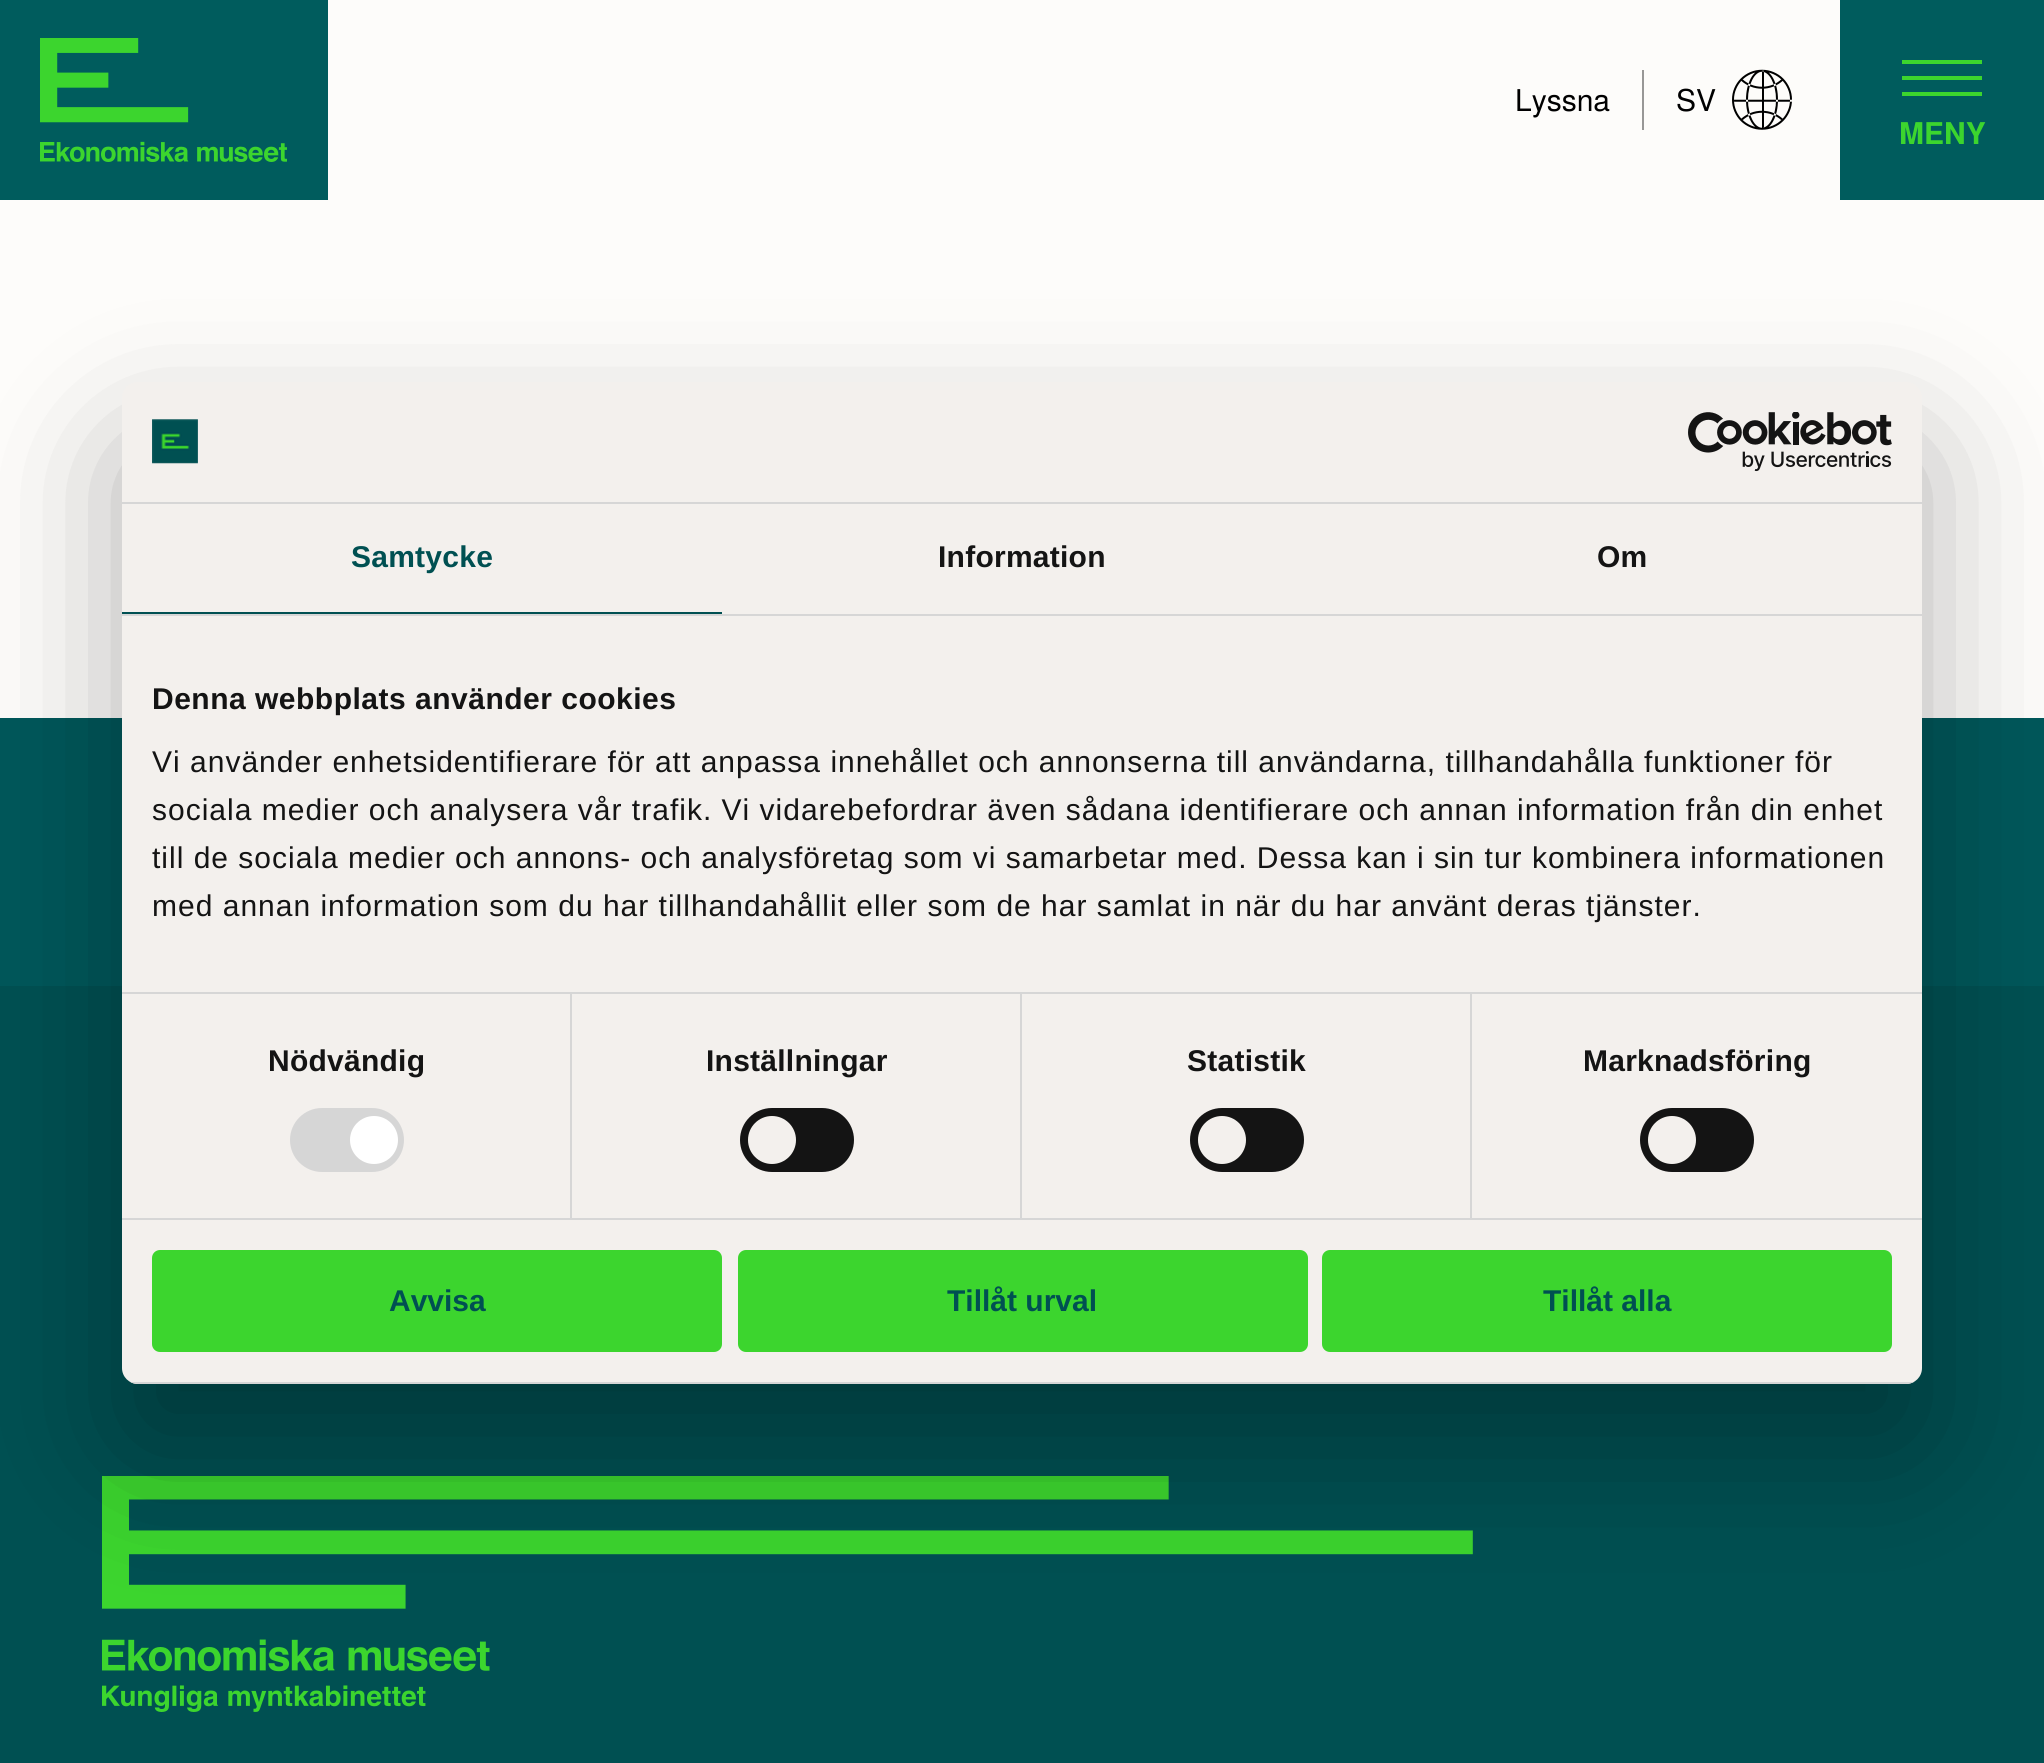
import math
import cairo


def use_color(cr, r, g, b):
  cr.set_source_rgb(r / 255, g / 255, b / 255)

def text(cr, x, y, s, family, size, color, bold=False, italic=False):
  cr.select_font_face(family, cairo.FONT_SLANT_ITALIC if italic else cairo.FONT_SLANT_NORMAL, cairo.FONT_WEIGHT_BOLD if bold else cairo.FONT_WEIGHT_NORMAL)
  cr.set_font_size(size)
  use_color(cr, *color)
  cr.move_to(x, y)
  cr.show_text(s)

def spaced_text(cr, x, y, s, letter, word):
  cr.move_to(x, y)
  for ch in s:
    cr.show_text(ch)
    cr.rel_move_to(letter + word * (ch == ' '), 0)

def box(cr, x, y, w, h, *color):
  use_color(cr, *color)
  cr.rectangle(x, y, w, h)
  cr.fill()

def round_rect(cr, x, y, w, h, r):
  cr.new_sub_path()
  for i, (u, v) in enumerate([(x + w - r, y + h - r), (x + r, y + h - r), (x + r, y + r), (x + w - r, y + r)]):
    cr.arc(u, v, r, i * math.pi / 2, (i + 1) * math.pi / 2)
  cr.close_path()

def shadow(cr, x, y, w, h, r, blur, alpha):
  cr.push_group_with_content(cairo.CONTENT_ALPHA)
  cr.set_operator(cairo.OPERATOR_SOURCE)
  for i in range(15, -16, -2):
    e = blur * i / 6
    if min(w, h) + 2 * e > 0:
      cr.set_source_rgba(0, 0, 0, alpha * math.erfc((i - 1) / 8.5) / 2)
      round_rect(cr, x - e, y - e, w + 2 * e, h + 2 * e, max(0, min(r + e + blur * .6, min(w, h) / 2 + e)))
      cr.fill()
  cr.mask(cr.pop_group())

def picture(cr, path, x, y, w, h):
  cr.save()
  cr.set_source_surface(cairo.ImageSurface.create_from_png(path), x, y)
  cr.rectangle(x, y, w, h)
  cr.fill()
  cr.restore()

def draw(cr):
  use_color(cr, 253, 252, 250)
  cr.paint()
  box(cr, 0, 0, 328, 200, 0, 92, 93)
  picture(cr, "img_01.png", 40, 38, 247, 124)
  box(cr, 1642, 70, 2, 60, 152, 151, 150)
  picture(cr, "img_02.png", 1732, 69, 60, 61)
  box(cr, 1840, 0, 204, 200, 0, 92, 93)
  box(cr, 1902, 76, 80, 4, 60, 213, 46)
  box(cr, 1902, 60, 80, 4, 60, 213, 46)
  box(cr, 1902, 92, 80, 4, 60, 213, 46)
  box(cr, 0, 718, 2044, 268, 0, 87, 90)
  box(cr, 0, 986, 2044, 777, 0, 80, 82)
  picture(cr, "img_03.png", 102, 1476, 1371, 236)
  use_color(cr, 0, 0, 0)
  shadow(cr, 122, 446, 1800, 1002, 16, 68, 0.3)
  use_color(cr, 243, 240, 237)
  round_rect(cr, 122, 382, 1800, 1002, 16)
  cr.fill()
  box(cr, 122, 502, 1800, 2, 214, 214, 214)
  picture(cr, "img_04.png", 152, 419, 46, 45)
  picture(cr, "img_05.png", 1688, 412, 204, 60)
  box(cr, 122, 614, 1800, 2, 214, 214, 214)
  box(cr, 122, 612, 600, 2, 0, 80, 82)
  box(cr, 122, 992, 1800, 2, 214, 214, 214)
  box(cr, 122, 1218, 1800, 2, 214, 214, 214)
  box(cr, 570, 994, 2, 224, 214, 214, 214)
  round_rect(cr, 290, 1108, 114, 64, 32)
  cr.fill()
  use_color(cr, 255, 255, 255)
  cr.arc(374, 1140, 24, 0, 2 * math.pi)
  cr.fill()
  box(cr, 1020, 994, 2, 224, 214, 214, 214)
  use_color(cr, 20, 20, 20)
  round_rect(cr, 740, 1108, 114, 64, 32)
  cr.fill()
  use_color(cr, 243, 240, 237)
  cr.arc(772, 1140, 24, 0, 2 * math.pi)
  cr.fill()
  box(cr, 1470, 994, 2, 224, 214, 214, 214)
  use_color(cr, 20, 20, 20)
  round_rect(cr, 1190, 1108, 114, 64, 32)
  cr.fill()
  use_color(cr, 243, 240, 237)
  cr.arc(1222, 1140, 24, 0, 2 * math.pi)
  cr.fill()
  use_color(cr, 20, 20, 20)
  round_rect(cr, 1640, 1108, 114, 64, 32)
  cr.fill()
  use_color(cr, 243, 240, 237)
  cr.arc(1672, 1140, 24, 0, 2 * math.pi)
  cr.fill()
  cr.save()
  round_rect(cr, 122, 382, 1800, 1002, 16)
  cr.clip()
  box(cr, 122, 1382, 1800, 2, 214, 214, 214)
  cr.restore()
  use_color(cr, 60, 213, 46)
  round_rect(cr, 154, 1252, 566, 98, 6)
  cr.fill_preserve()
  cr.set_line_width(4)
  cr.stroke()
  round_rect(cr, 740, 1252, 566, 98, 6)
  cr.fill_preserve()
  cr.stroke()
  round_rect(cr, 1324, 1252, 566, 98, 6)
  cr.fill_preserve()
  cr.stroke()
  text(cr, 1515, 111, "Lyssna", "TeX Gyre Heros", 30, (0, 0, 0))
  text(cr, 1676, 111, "SV", "TeX Gyre Heros", 30, (0, 0, 0))
  text(cr, 1899, 144, "MENY", "TeX Gyre Heros", 30, (60, 213, 46), bold=True)
  cr.select_font_face("Liberation Sans", cairo.FONT_SLANT_NORMAL, cairo.FONT_WEIGHT_BOLD)
  use_color(cr, 0, 80, 82)
  spaced_text(cr, 351, 567, "Samtycke", 0.25, 0)
  use_color(cr, 20, 20, 20)
  spaced_text(cr, 938, 567, "Information", 0.25, 0)
  spaced_text(cr, 1597, 567, "Om", 0.25, 0)
  spaced_text(cr, 152, 709, "Denna webbplats använder cookies", 0.5, 0)
  cr.select_font_face("Liberation Sans")
  spaced_text(cr, 152, 772, "Vi använder enhetsidentifierare för att anpassa innehållet och annonserna till användarna, tillhandahålla funktioner för", 1, 0)
  spaced_text(cr, 152, 820, "sociala medier och analysera vår trafik. Vi vidarebefordrar även sådana identifierare och annan information från din enhet", 1, 0)
  spaced_text(cr, 152, 868, "till de sociala medier och annons- och analysföretag som vi samarbetar med. Dessa kan i sin tur kombinera informationen", 1, 0)
  spaced_text(cr, 152, 916, "med annan information som du har tillhandahållit eller som de har samlat in när du har använt deras tjänster.", 1, 0)
  cr.select_font_face("Liberation Sans", cairo.FONT_SLANT_NORMAL, cairo.FONT_WEIGHT_BOLD)
  spaced_text(cr, 268, 1071, "Nödvändig", 0.25, 0)
  spaced_text(cr, 706, 1071, "Inställningar", 0.25, 0)
  spaced_text(cr, 1187, 1071, "Statistik", 0.25, 0)
  spaced_text(cr, 1583, 1071, "Marknadsföring", 0.25, 0)
  text(cr, 389, 1311, "Avvisa", "Liberation Sans", 30, (0, 80, 82), bold=True)
  text(cr, 947, 1311, "Tillåt urval", "Liberation Sans", 30, (0, 80, 82), bold=True)
  text(cr, 1543, 1311, "Tillåt alla", "Liberation Sans", 30, (0, 80, 82), bold=True)


surface = cairo.ImageSurface(cairo.FORMAT_RGB24, 2044, 1763)
cr = cairo.Context(surface)
options = cairo.FontOptions()
options.set_hint_metrics(cairo.HINT_METRICS_OFF)
options.set_hint_style(cairo.HINT_STYLE_NONE)
cr.set_font_options(options)
cr.set_miter_limit(4)
draw(cr)
surface.write_to_png("out.png")
